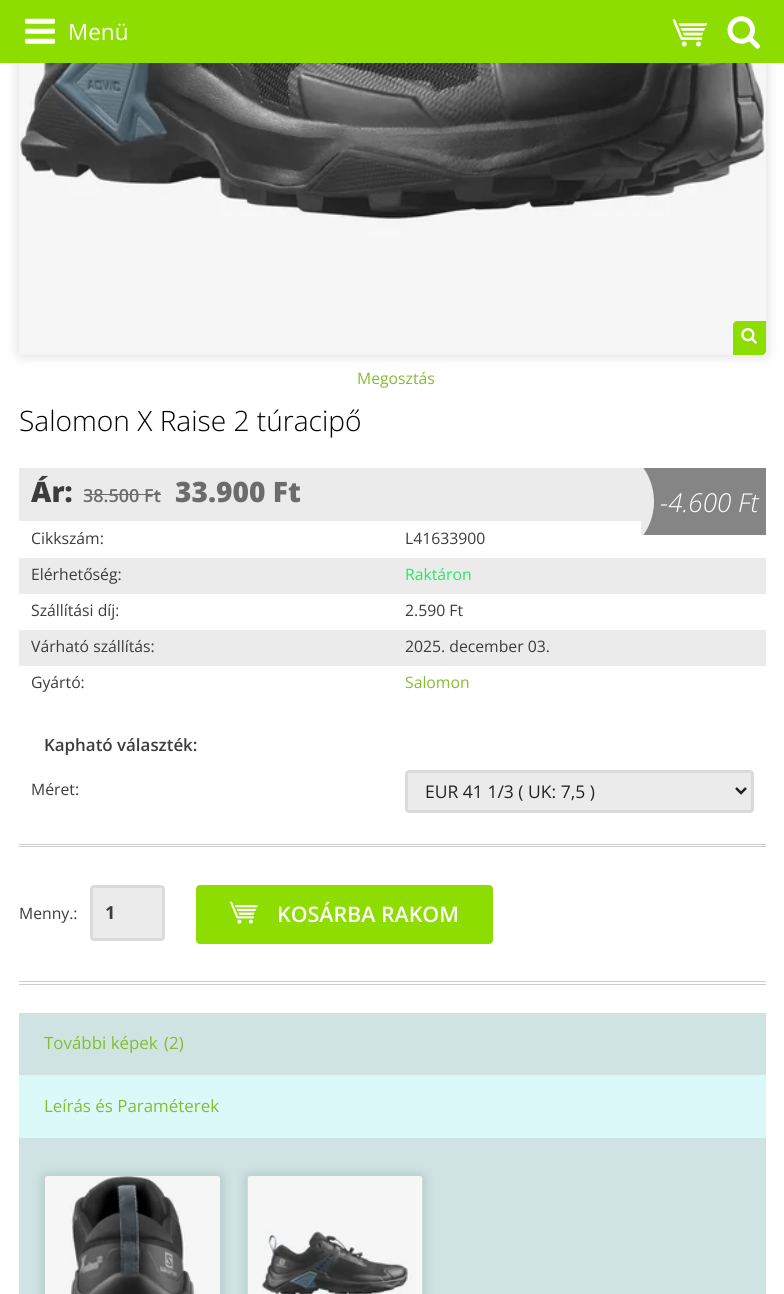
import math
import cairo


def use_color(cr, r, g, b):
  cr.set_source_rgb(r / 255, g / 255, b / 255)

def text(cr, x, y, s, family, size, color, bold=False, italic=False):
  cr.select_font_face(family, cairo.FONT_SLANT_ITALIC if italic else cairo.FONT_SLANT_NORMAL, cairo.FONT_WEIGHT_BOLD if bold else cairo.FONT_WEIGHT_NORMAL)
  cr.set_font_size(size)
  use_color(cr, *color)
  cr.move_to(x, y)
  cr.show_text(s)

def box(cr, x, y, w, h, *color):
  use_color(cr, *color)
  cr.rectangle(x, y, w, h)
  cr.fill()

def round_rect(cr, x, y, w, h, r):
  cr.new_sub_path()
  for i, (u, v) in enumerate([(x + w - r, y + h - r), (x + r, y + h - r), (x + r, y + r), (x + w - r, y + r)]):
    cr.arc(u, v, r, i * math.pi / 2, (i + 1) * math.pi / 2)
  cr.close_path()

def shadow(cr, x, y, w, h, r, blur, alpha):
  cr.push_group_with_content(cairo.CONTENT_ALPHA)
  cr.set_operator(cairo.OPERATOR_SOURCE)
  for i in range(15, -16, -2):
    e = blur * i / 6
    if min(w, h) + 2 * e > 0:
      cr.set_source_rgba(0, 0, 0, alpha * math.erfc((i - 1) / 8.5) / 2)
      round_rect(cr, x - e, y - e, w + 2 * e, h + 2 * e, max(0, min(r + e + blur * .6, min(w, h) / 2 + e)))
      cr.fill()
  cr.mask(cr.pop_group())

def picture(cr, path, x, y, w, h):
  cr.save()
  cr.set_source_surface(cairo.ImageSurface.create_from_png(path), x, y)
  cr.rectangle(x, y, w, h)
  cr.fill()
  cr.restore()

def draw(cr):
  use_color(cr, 255, 255, 255)
  cr.paint()
  use_color(cr, 0, 0, 0)
  shadow(cr, 16, -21, 753, 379, 6, 5, 0.1)
  box(cr, 0, 0, 784, 63, 141, 222, 0)
  picture(cr, "img_01.png", 25, 18, 30, 26)
  picture(cr, "img_02.png", 672, 19, 36, 28)
  picture(cr, "img_03.png", 727, 16, 33, 33)
  picture(cr, "img_04.png", 19, 63, 747, 292)
  cr.new_path()
  cr.move_to(737, 321)
  cr.line_to(766, 321)
  cr.line_to(766, 351)
  cr.curve_to(766, 353, 764, 355, 762, 355)
  cr.line_to(733, 355)
  cr.line_to(733, 325)
  cr.curve_to(733, 323, 735, 321, 737, 321)
  cr.close_path()
  cr.fill()
  picture(cr, "img_05.png", 741, 328, 16, 16)
  box(cr, 19, 468, 622, 53, 235, 235, 235)
  box(cr, 84, 494, 77, 1, 108, 108, 108)
  box(cr, 643, 468, 123, 67, 133, 133, 133)
  box(cr, 19, 558, 747, 36, 235, 235, 235)
  cr.save()
  cr.rectangle(641, 468, 125, 67)
  cr.clip()
  round_rect(cr, 536, 443, 118, 117, 58.5)
  cr.fill()
  cr.restore()
  box(cr, 19, 630, 747, 36, 235, 235, 235)
  round_rect(cr, 406.5, 771.5, 346, 40, 2.5)
  cr.fill_preserve()
  use_color(cr, 218, 218, 218)
  cr.set_line_width(3)
  cr.stroke()
  cr.new_path()
  cr.move_to(736, 788)
  cr.line_to(741, 793)
  cr.line_to(746, 788)
  use_color(cr, 34, 34, 34)
  cr.set_line_width(2.5)
  cr.stroke()
  box(cr, 19, 844, 747, 1, 204, 204, 204)
  box(cr, 19, 846, 747, 1, 204, 204, 204)
  box(cr, 19, 981, 747, 1, 204, 204, 204)
  box(cr, 19, 984, 747, 1, 204, 204, 204)
  use_color(cr, 235, 235, 235)
  round_rect(cr, 91.5, 886.5, 72, 53, 2.5)
  cr.fill_preserve()
  use_color(cr, 218, 218, 218)
  cr.set_line_width(3)
  cr.stroke()
  use_color(cr, 141, 222, 0)
  round_rect(cr, 197.5, 886.5, 294, 56, 2.5)
  cr.fill_preserve()
  cr.stroke()
  picture(cr, "img_06.png", 230, 901, 28, 23)
  box(cr, 19, 1075, 747, 63, 220, 249, 250)
  box(cr, 19, 1013, 747, 62, 207, 227, 227)
  box(cr, 19, 1138, 747, 156, 207, 227, 227)
  use_color(cr, 0, 0, 0)
  shadow(cr, 41, 1173, 183, 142, 6, 5, 0.1)
  picture(cr, "img_07.png", 45, 1176, 175, 118)
  shadow(cr, 244, 1173, 182, 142, 6, 5, 0.1)
  picture(cr, "img_08.png", 247, 1176, 176, 118)
  text(cr, 68, 40, "Menü", "Open Sans", 22.5, (255, 255, 255))
  text(cr, 357, 384, "Megosztás", "Open Sans", 15.75, (133, 188, 48))
  text(cr, 19, 431, "Salomon X Raise 2 túracipő", "Open Sans Light", 28.1, (0, 0, 0))
  text(cr, 31, 502, "Ár:", "Open Sans ExtraBold", 28.1, (61, 60, 61))
  text(cr, 83, 502, "38.500 Ft", "Open Sans SemiBold", 18, (108, 108, 108))
  text(cr, 175, 502, "33.900 Ft", "Open Sans ExtraBold", 28.1, (108, 108, 108))
  text(cr, 660, 512, "-4.600 Ft", "Open Sans Light", 26, (255, 255, 255), italic=True)
  text(cr, 31, 544, "Cikkszám:", "Open Sans", 15.75, (61, 60, 61))
  text(cr, 405, 544, "L41633900", "Open Sans", 15.75, (61, 60, 61))
  text(cr, 31, 580, "Elérhetőség:", "Open Sans", 15.75, (61, 60, 61))
  text(cr, 405, 580, "Raktáron", "Open Sans", 15.75, (33, 235, 100))
  text(cr, 31, 616, "Szállítási díj:", "Open Sans", 15.75, (61, 60, 61))
  text(cr, 405, 616, "2.590 Ft", "Open Sans", 15.75, (61, 60, 61))
  text(cr, 31, 652, "Várható szállítás:", "Open Sans", 15.75, (61, 60, 61))
  text(cr, 405, 652, "2025. december 03.", "Open Sans", 15.75, (61, 60, 61))
  text(cr, 31, 688, "Gyártó:", "Open Sans", 15.75, (61, 60, 61))
  text(cr, 405, 688, "Salomon", "Open Sans", 15.75, (133, 188, 48))
  text(cr, 44, 751, "Kapható választék:", "Open Sans SemiBold", 16.9, (61, 60, 61))
  text(cr, 31, 795, "Méret:", "Open Sans", 15.75, (61, 60, 61))
  text(cr, 425, 798, "EUR 41 1/3 ( UK: 7,5 )", "Open Sans", 17.5, (34, 34, 34))
  text(cr, 19, 919, "Menny.:", "Open Sans", 15.75, (61, 60, 61))
  text(cr, 105, 919, "1", "Open Sans", 18, (61, 60, 61), bold=True)
  text(cr, 277, 922, "KOSÁRBA RAKOM", "Open Sans SemiBold", 21.4, (255, 255, 255))
  text(cr, 44, 1049, "További képek", "Open Sans", 16.9, (133, 188, 48))
  text(cr, 164, 1049, "(2)", "Open Sans", 16.9, (133, 188, 48))
  text(cr, 44, 1112, "Leírás és Paraméterek", "Open Sans", 16.9, (133, 188, 48))


surface = cairo.ImageSurface(cairo.FORMAT_RGB24, 784, 1294)
cr = cairo.Context(surface)
options = cairo.FontOptions()
options.set_hint_metrics(cairo.HINT_METRICS_OFF)
options.set_hint_style(cairo.HINT_STYLE_NONE)
cr.set_font_options(options)
cr.set_miter_limit(4)
draw(cr)
surface.write_to_png("out.png")
